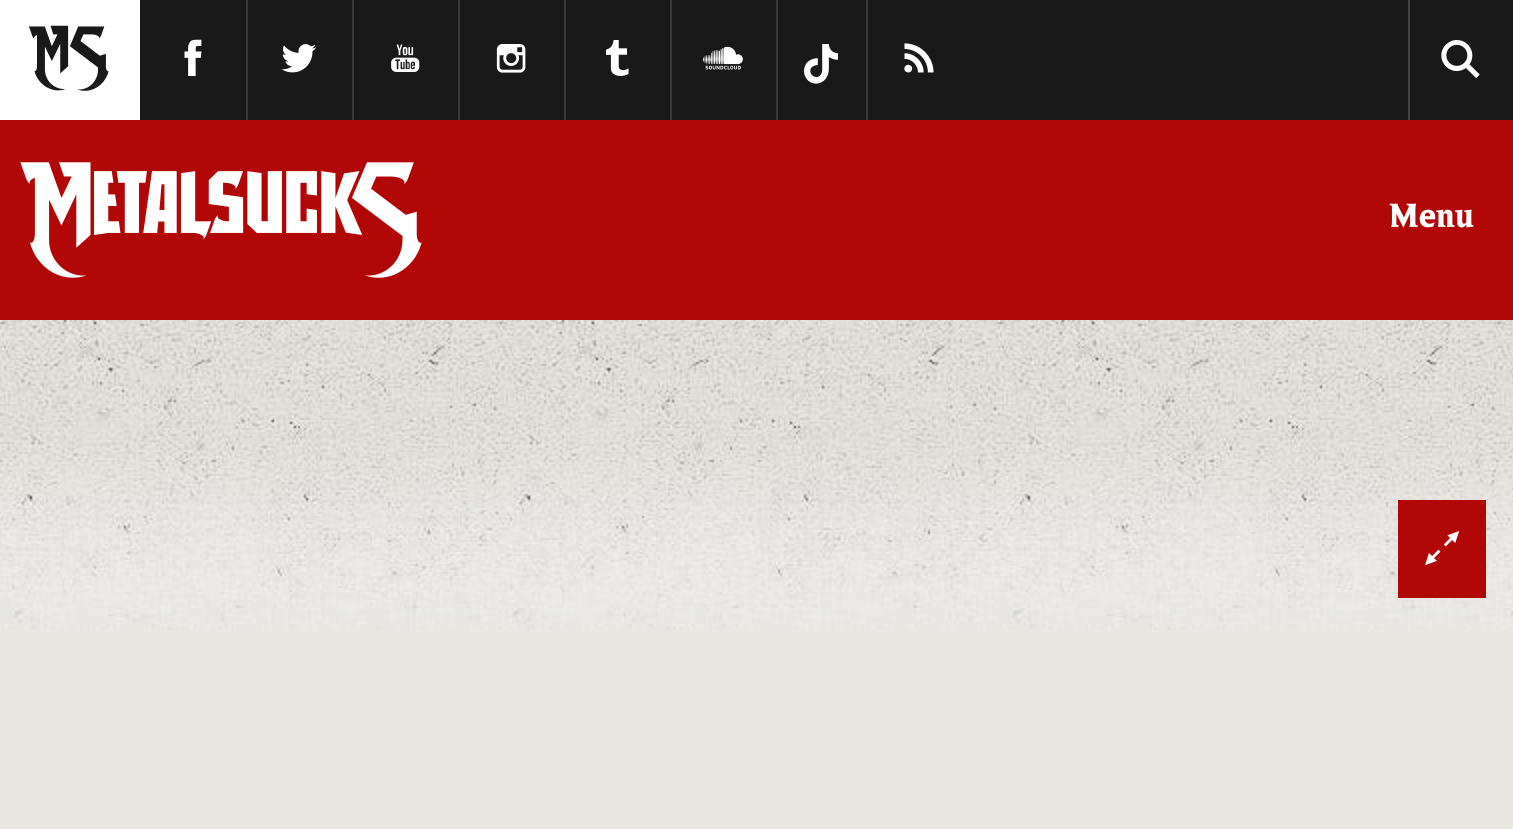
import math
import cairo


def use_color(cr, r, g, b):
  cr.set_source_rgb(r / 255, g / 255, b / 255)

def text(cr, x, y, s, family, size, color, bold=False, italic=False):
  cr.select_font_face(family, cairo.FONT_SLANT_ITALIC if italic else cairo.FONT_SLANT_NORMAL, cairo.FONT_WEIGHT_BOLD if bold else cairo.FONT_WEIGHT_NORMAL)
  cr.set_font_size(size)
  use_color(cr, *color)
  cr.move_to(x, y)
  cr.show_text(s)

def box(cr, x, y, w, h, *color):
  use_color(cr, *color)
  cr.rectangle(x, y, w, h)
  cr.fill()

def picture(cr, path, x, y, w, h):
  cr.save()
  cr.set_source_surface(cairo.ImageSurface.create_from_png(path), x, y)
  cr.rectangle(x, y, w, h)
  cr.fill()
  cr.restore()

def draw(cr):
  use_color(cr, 234, 231, 226)
  cr.paint()
  box(cr, 140, 0, 1373, 120, 26, 25, 25)
  box(cr, 0, 0, 140, 120, 255, 255, 255)
  picture(cr, "img_01.png", 29, 25, 80, 66)
  picture(cr, "img_02.png", 184, 39, 18, 37)
  box(cr, 246, 0, 2, 120, 57, 57, 57)
  picture(cr, "img_03.png", 281, 44, 36, 29)
  box(cr, 352, 0, 2, 120, 57, 57, 57)
  picture(cr, "img_04.png", 391, 44, 29, 28)
  box(cr, 458, 0, 2, 120, 57, 57, 57)
  picture(cr, "img_05.png", 496, 44, 30, 29)
  box(cr, 564, 0, 2, 120, 57, 57, 57)
  picture(cr, "img_06.png", 606, 40, 23, 36)
  box(cr, 670, 0, 2, 120, 57, 57, 57)
  picture(cr, "img_07.png", 703, 46, 40, 24)
  box(cr, 776, 0, 2, 120, 57, 57, 57)
  picture(cr, "img_08.png", 804, 44, 34, 40)
  box(cr, 866, 0, 2, 120, 57, 57, 57)
  picture(cr, "img_09.png", 904, 43, 30, 30)
  box(cr, 1408, 0, 2, 120, 68, 68, 72)
  picture(cr, "img_10.png", 1441, 40, 39, 39)
  box(cr, 0, 120, 1513, 200, 178, 7, 7)
  picture(cr, "img_11.png", 20, 162, 402, 116)
  picture(cr, "img_12.png", 0, 320, 1513, 310)
  box(cr, 1398, 500, 88, 98, 178, 7, 7)
  picture(cr, "img_13.png", 1425, 531, 35, 35)
  text(cr, 1389, 227, "Menu", "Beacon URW", 35, (255, 255, 255), bold=True)


surface = cairo.ImageSurface(cairo.FORMAT_RGB24, 1513, 829)
cr = cairo.Context(surface)
options = cairo.FontOptions()
options.set_hint_metrics(cairo.HINT_METRICS_OFF)
options.set_hint_style(cairo.HINT_STYLE_NONE)
cr.set_font_options(options)
cr.set_miter_limit(4)
draw(cr)
surface.write_to_png("out.png")
